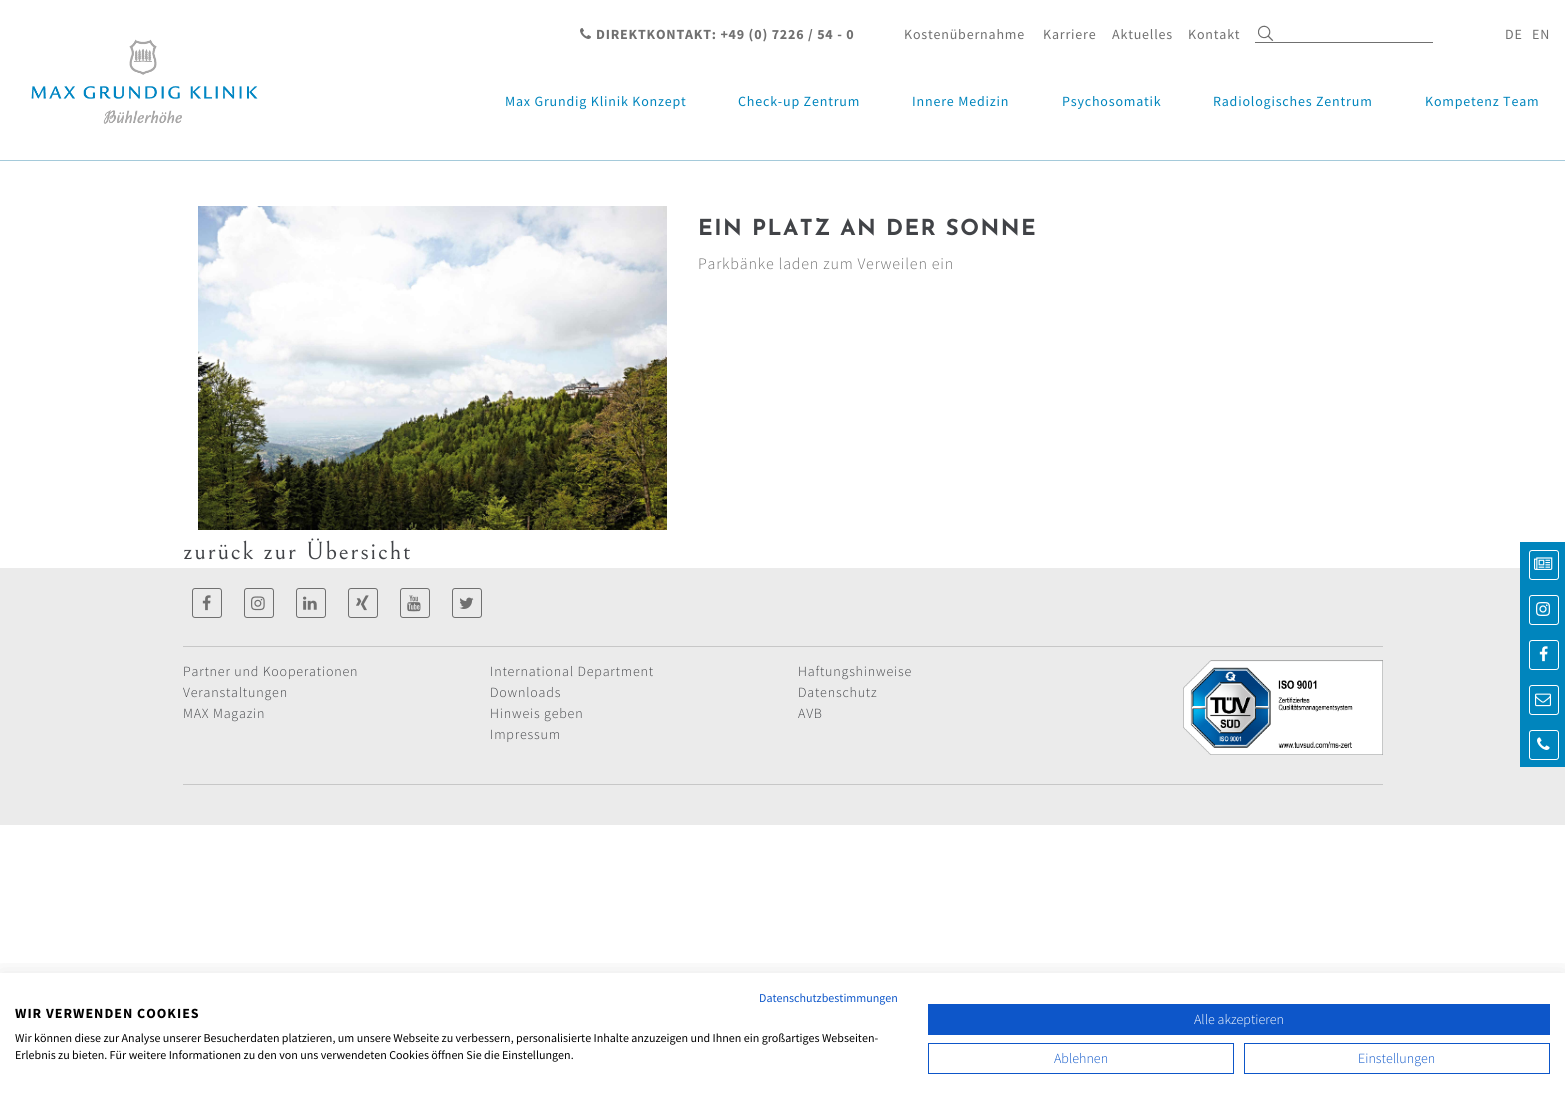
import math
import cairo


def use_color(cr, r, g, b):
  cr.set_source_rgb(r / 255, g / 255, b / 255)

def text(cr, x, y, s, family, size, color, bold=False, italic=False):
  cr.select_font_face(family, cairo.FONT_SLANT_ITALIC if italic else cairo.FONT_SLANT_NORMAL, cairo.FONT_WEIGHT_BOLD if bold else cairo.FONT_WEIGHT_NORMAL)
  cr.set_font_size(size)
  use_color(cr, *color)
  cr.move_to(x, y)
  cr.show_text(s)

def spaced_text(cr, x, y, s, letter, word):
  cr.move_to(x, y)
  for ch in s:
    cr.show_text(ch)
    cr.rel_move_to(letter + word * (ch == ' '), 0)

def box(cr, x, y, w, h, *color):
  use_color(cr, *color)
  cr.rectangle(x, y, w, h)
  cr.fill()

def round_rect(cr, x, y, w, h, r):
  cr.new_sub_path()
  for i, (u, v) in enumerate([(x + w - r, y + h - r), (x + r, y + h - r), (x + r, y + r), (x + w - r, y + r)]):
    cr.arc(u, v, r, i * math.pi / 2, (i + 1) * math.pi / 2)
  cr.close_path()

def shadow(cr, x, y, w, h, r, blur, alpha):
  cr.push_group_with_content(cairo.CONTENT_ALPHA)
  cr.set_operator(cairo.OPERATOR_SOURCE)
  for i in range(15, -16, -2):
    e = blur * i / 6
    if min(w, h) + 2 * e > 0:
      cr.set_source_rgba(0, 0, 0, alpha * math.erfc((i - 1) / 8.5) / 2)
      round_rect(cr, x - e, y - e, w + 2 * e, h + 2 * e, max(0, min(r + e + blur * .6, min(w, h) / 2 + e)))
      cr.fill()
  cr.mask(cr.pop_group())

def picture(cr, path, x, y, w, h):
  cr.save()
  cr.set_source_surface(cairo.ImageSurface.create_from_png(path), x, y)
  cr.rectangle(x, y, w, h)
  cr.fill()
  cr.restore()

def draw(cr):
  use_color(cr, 255, 255, 255)
  cr.paint()
  box(cr, 0, 160, 1565, 1, 165, 202, 218)
  picture(cr, "img_01.png", 31, 39, 227, 85)
  picture(cr, "img_02.png", 580, 28, 11, 11)
  picture(cr, "img_03.png", 1258, 25, 16, 16)
  box(cr, 1255, 42, 178, 1, 112, 112, 112)
  picture(cr, "img_04.png", 198, 206, 469, 324)
  box(cr, 0, 568, 1565, 257, 235, 235, 235)
  round_rect(cr, 192.5, 588.5, 29, 29, 2.5)
  use_color(cr, 112, 112, 112)
  cr.set_line_width(1)
  cr.stroke()
  picture(cr, "img_05.png", 202, 595, 9, 16)
  round_rect(cr, 244.5, 588.5, 29, 29, 2.5)
  cr.stroke()
  picture(cr, "img_06.png", 251, 596, 14, 15)
  round_rect(cr, 296.5, 588.5, 29, 29, 2.5)
  cr.stroke()
  picture(cr, "img_07.png", 303, 596, 14, 14)
  round_rect(cr, 348.5, 588.5, 29, 29, 2.5)
  cr.stroke()
  picture(cr, "img_08.png", 356, 595, 13, 16)
  round_rect(cr, 400.5, 588.5, 29, 29, 2.5)
  cr.stroke()
  picture(cr, "img_09.png", 407, 595, 14, 17)
  round_rect(cr, 452.5, 588.5, 29, 29, 2.5)
  cr.stroke()
  picture(cr, "img_10.png", 459, 597, 15, 12)
  box(cr, 183, 646, 1200, 1, 199, 199, 199)
  picture(cr, "img_11.png", 1183, 660, 200, 95)
  box(cr, 183, 784, 1200, 1, 199, 199, 199)
  box(cr, 1520, 542, 45, 225, 0, 133, 189)
  round_rect(cr, 1529.5, 550.5, 29, 29, 2.5)
  use_color(cr, 255, 255, 255)
  cr.stroke()
  picture(cr, "img_12.png", 1534, 557, 19, 13)
  round_rect(cr, 1529.5, 595.5, 29, 29, 2.5)
  cr.stroke()
  picture(cr, "img_13.png", 1536, 602, 14, 14)
  round_rect(cr, 1529.5, 640.5, 29, 29, 2.5)
  cr.stroke()
  picture(cr, "img_14.png", 1539, 646, 9, 16)
  round_rect(cr, 1529.5, 685.5, 29, 29, 2.5)
  cr.stroke()
  picture(cr, "img_15.png", 1535, 693, 16, 14)
  round_rect(cr, 1529.5, 730.5, 29, 29, 2.5)
  cr.stroke()
  picture(cr, "img_16.png", 1537, 737, 13, 13)
  cr.save()
  cr.rectangle(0, 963, 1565, 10)
  cr.clip()
  use_color(cr, 0, 0, 0)
  shadow(cr, 0, 973, 1565, 128, 0, 12, 0.1)
  cr.restore()
  box(cr, 928, 1004, 622, 31, 13, 86, 201)
  cr.rectangle(928.5, 1043.5, 305, 30)
  cr.stroke()
  cr.rectangle(1244.5, 1043.5, 305, 30)
  cr.stroke()
  cr.select_font_face("Source Sans Pro", cairo.FONT_SLANT_NORMAL, cairo.FONT_WEIGHT_BOLD)
  cr.set_font_size(14)
  use_color(cr, 112, 112, 112)
  spaced_text(cr, 596, 39, "DIREKTKONTAKT: +49 (0) 7226 / 54 - 0", 0.8, 0)
  cr.select_font_face("Source Sans Pro")
  spaced_text(cr, 904, 39, "Kostenübernahme", 0.8, 0)
  spaced_text(cr, 1043, 39, "Karriere", 0.8, 0)
  spaced_text(cr, 1112, 39, "Aktuelles", 0.8, 0)
  spaced_text(cr, 1188, 39, "Kontakt", 0.8, 0)
  spaced_text(cr, 1505, 39, "DE", 0.8, 0)
  spaced_text(cr, 1532, 39, "EN", 0.8, 0)
  use_color(cr, 0, 133, 189)
  spaced_text(cr, 505, 106, "Max Grundig Klinik Konzept", 0.8, 0)
  spaced_text(cr, 738, 106, "Check-up Zentrum", 0.8, 0)
  spaced_text(cr, 912, 106, "Innere Medizin", 0.8, 0)
  spaced_text(cr, 1062, 106, "Psychosomatik", 0.8, 0)
  spaced_text(cr, 1213, 106, "Radiologisches Zentrum", 0.8, 0)
  spaced_text(cr, 1425, 106, "Kompetenz Team", 0.8, 0)
  cr.select_font_face("Josefin Sans", cairo.FONT_SLANT_NORMAL, cairo.FONT_WEIGHT_BOLD)
  cr.set_font_size(22)
  use_color(cr, 65, 67, 71)
  spaced_text(cr, 698, 235, "EIN PLATZ AN DER SONNE", 1.5, 0)
  cr.select_font_face("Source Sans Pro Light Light")
  cr.set_font_size(16)
  use_color(cr, 112, 112, 112)
  spaced_text(cr, 698, 269, "Parkbänke laden zum Verweilen ein", 0.8, 0)
  cr.select_font_face("Bellefair")
  cr.set_font_size(25)
  use_color(cr, 65, 67, 71)
  spaced_text(cr, 183, 559, "zurück zur Übersicht", 1.75, 0)
  cr.select_font_face("Source Sans Pro Light Light")
  cr.set_font_size(14)
  spaced_text(cr, 183, 676, "Partner und Kooperationen", 0.8, 0)
  spaced_text(cr, 183, 697, "Veranstaltungen", 0.8, 0)
  spaced_text(cr, 183, 718, "MAX Magazin", 0.8, 0)
  spaced_text(cr, 490, 676, "International Department", 0.8, 0)
  spaced_text(cr, 490, 697, "Downloads", 0.8, 0)
  spaced_text(cr, 490, 718, "Hinweis geben", 0.8, 0)
  spaced_text(cr, 490, 739, "Impressum", 0.8, 0)
  spaced_text(cr, 798, 676, "Haftungshinweise", 0.8, 0)
  spaced_text(cr, 798, 697, "Datenschutz", 0.8, 0)
  spaced_text(cr, 798, 718, "AVB", 0.8, 0)
  text(cr, 759, 1002, "Datenschutzbestimmungen", "Source Sans Pro", 12, (13, 86, 201))
  cr.select_font_face("Source Sans Pro", cairo.FONT_SLANT_NORMAL, cairo.FONT_WEIGHT_BOLD)
  cr.set_font_size(14)
  use_color(cr, 0, 0, 0)
  spaced_text(cr, 15, 1018, "WIR VERWENDEN COOKIES", 1, 0)
  text(cr, 15, 1042, "Wir können diese zur Analyse unserer Besucherdaten platzieren, um unsere Webseite zu verbessern, personalisierte Inhalte anzuzeigen und Ihnen ein großartiges Webseiten-", "Source Sans Pro", 12, (0, 0, 0))
  text(cr, 15, 1059, "Erlebnis zu bieten. Für weitere Informationen zu den von uns verwendeten Cookies öffnen Sie die Einstellungen.", "Source Sans Pro", 12, (0, 0, 0))
  text(cr, 1194, 1024, "Alle akzeptieren", "Source Sans Pro Light Light", 14, (255, 255, 255))
  text(cr, 1054, 1063, "Ablehnen", "Source Sans Pro Light Light", 14, (13, 86, 201))
  text(cr, 1358, 1063, "Einstellungen", "Source Sans Pro Light Light", 14, (13, 86, 201))


surface = cairo.ImageSurface(cairo.FORMAT_RGB24, 1565, 1101)
cr = cairo.Context(surface)
options = cairo.FontOptions()
options.set_hint_metrics(cairo.HINT_METRICS_OFF)
options.set_hint_style(cairo.HINT_STYLE_NONE)
cr.set_font_options(options)
cr.set_miter_limit(4)
draw(cr)
surface.write_to_png("out.png")
